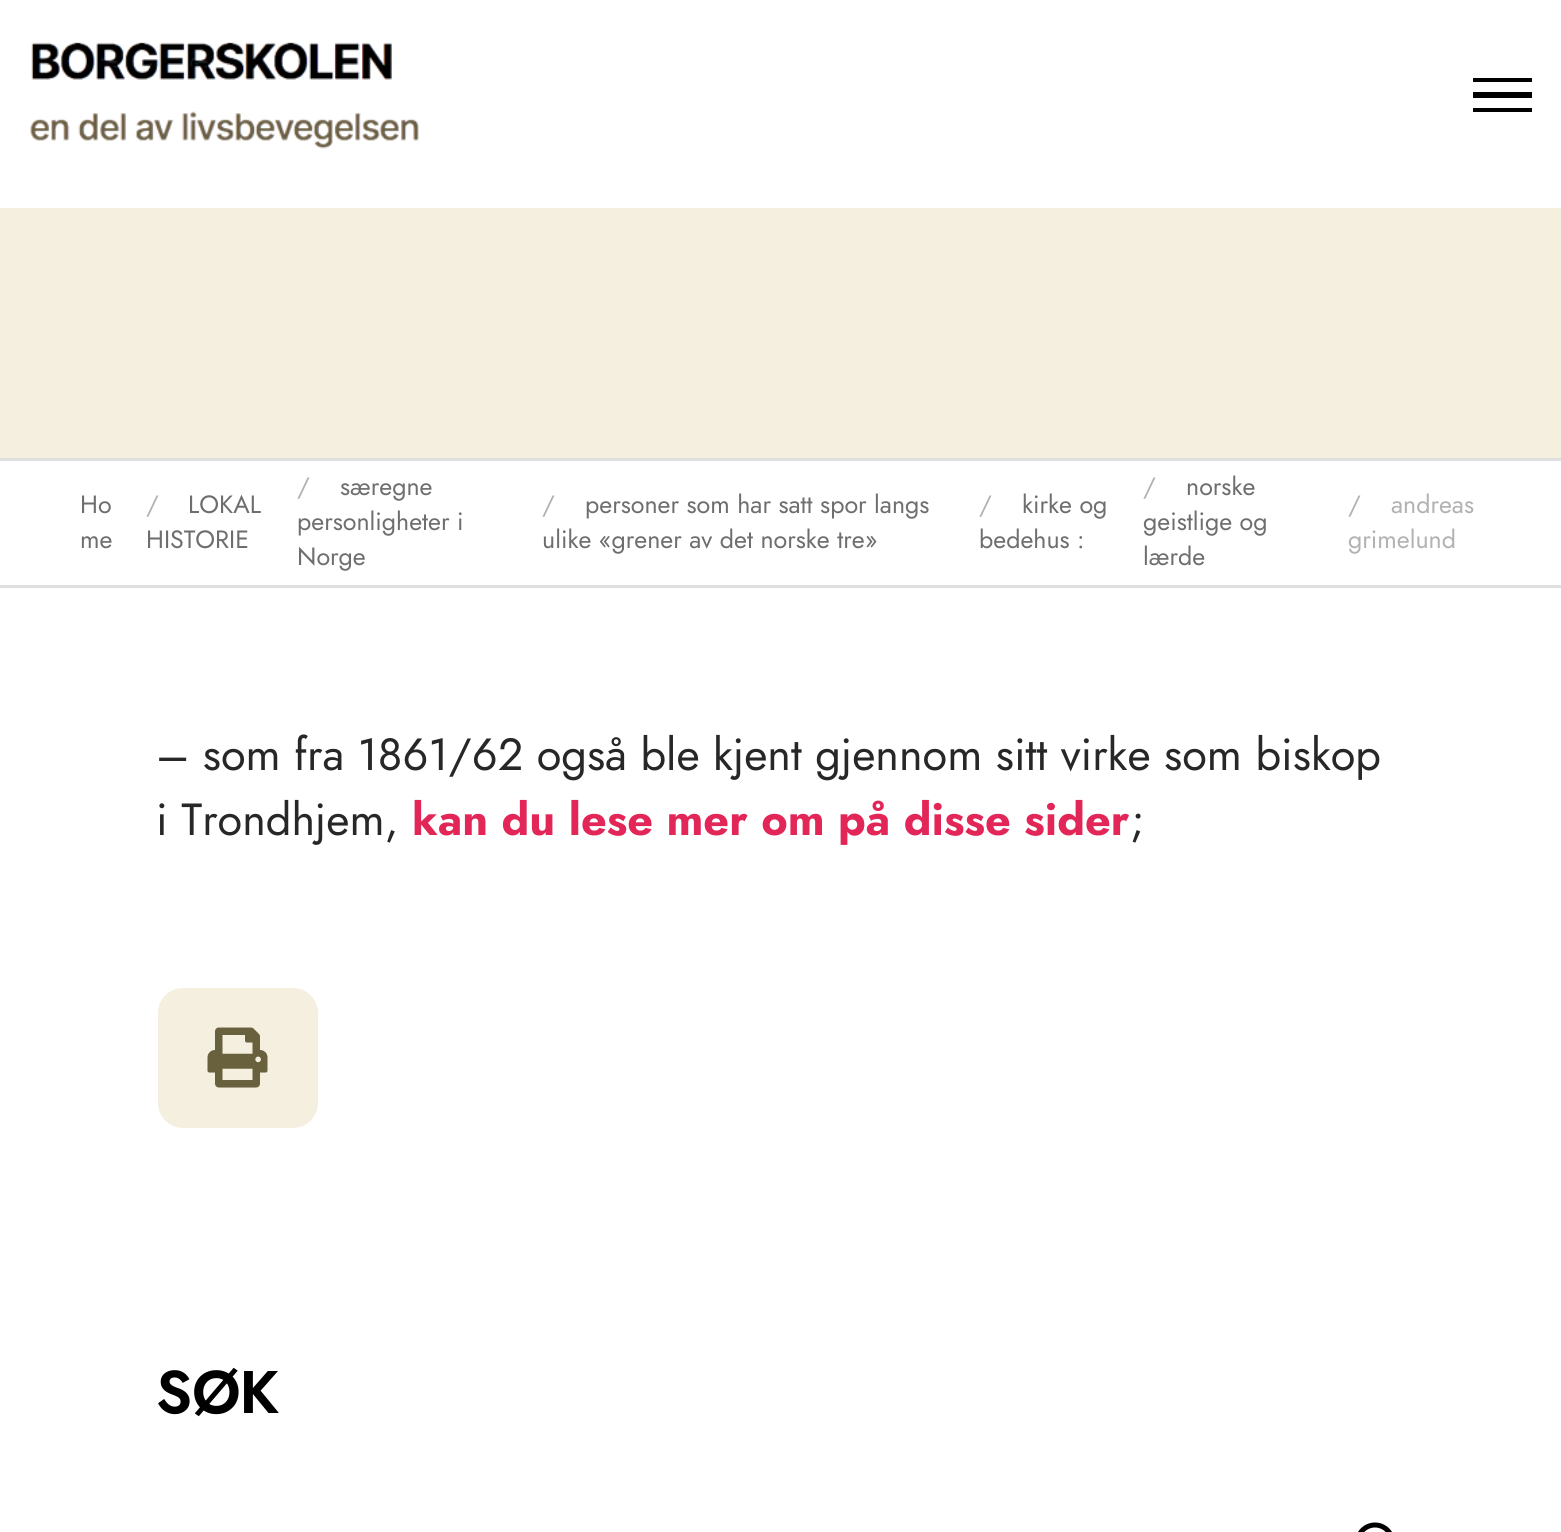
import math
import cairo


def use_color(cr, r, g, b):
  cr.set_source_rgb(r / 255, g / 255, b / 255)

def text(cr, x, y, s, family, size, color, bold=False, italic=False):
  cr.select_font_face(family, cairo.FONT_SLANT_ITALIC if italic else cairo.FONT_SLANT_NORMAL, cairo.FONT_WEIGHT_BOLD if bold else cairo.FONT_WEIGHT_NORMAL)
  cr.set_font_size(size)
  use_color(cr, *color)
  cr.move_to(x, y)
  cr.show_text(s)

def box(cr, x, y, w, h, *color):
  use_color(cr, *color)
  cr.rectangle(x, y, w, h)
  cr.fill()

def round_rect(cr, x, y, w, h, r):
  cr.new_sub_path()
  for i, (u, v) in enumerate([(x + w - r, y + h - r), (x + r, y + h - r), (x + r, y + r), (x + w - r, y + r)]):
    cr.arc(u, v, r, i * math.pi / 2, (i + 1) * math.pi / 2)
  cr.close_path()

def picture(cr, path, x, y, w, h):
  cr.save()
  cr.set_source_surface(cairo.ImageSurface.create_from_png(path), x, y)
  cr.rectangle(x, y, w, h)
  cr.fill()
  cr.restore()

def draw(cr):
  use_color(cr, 255, 255, 255)
  cr.paint()
  picture(cr, "img_01.png", 30, 42, 389, 107)
  cr.save()
  cr.rectangle(1473, 65, 60, 60)
  cr.clip()
  use_color(cr, 0, 0, 0)
  cr.new_path()
  cr.move_to(1532, 108)
  cr.line_to(1532, 112)
  cr.line_to(1472, 112)
  cr.line_to(1472, 108)
  cr.close_path()
  cr.move_to(1532, 92)
  cr.line_to(1532, 98)
  cr.line_to(1472, 98)
  cr.line_to(1472, 92)
  cr.close_path()
  cr.move_to(1532, 78)
  cr.line_to(1532, 82)
  cr.line_to(1472, 82)
  cr.line_to(1472, 78)
  cr.close_path()
  cr.fill()
  cr.restore()
  box(cr, 0, 208, 1561, 250, 245, 239, 224)
  box(cr, 0, 458, 1561, 3, 224, 224, 224)
  box(cr, 0, 585, 1561, 3, 224, 224, 224)
  use_color(cr, 245, 239, 224)
  round_rect(cr, 158, 988, 160, 140, 25)
  cr.fill()
  picture(cr, "img_02.png", 207, 1027, 61, 61)
  picture(cr, "img_03.png", 1358, 1522, 34, 10)
  text(cr, 80, 513, "Ho", "Jost", 25, (110, 110, 110))
  text(cr, 80, 548, "me", "Jost", 25, (110, 110, 110))
  text(cr, 146, 513, "/", "Jost", 25, (178, 178, 178))
  text(cr, 188, 513, "LOKAL", "Jost", 25, (110, 110, 110))
  text(cr, 146, 548, "HISTORIE", "Jost", 25, (110, 110, 110))
  text(cr, 297, 495, "/", "Jost", 25, (178, 178, 178))
  text(cr, 340, 495, "særegne", "Jost", 25, (110, 110, 110))
  text(cr, 297, 530, "personligheter i", "Jost", 25, (110, 110, 110))
  text(cr, 297, 565, "Norge", "Jost", 25, (110, 110, 110))
  text(cr, 542, 513, "/", "Jost", 25, (178, 178, 178))
  text(cr, 585, 513, "personer som har satt spor langs", "Jost", 25, (110, 110, 110))
  text(cr, 542, 548, "ulike «grener av det norske tre»", "Jost", 25, (110, 110, 110))
  text(cr, 979, 513, "/", "Jost", 25, (178, 178, 178))
  text(cr, 1022, 513, "kirke og", "Jost", 25, (110, 110, 110))
  text(cr, 979, 548, "bedehus :", "Jost", 25, (110, 110, 110))
  text(cr, 1143, 495, "/", "Jost", 25, (178, 178, 178))
  text(cr, 1186, 495, "norske", "Jost", 25, (110, 110, 110))
  text(cr, 1143, 530, "geistlige og", "Jost", 25, (110, 110, 110))
  text(cr, 1143, 565, "lærde", "Jost", 25, (110, 110, 110))
  text(cr, 1348, 513, "/", "Jost", 25, (178, 178, 178))
  text(cr, 1391, 513, "andreas", "Jost", 25, (178, 178, 178))
  text(cr, 1348, 548, "grimelund", "Jost", 25, (178, 178, 178))
  text(cr, 156, 770, "– som fra 1861/62 også ble kjent gjennom sitt virke som biskop", "Jost", 45, (39, 39, 39))
  text(cr, 156, 835, "i Trondhjem,", "Jost", 45, (39, 39, 39))
  text(cr, 412, 835, "kan du lese mer om på disse sider", "Jost", 45, (226, 38, 88), bold=True)
  text(cr, 1130, 835, ";", "Jost", 45, (39, 39, 39))
  text(cr, 156, 1413, "SØK", "Jost SemiBold", 60, (0, 0, 0))


surface = cairo.ImageSurface(cairo.FORMAT_RGB24, 1561, 1532)
cr = cairo.Context(surface)
options = cairo.FontOptions()
options.set_hint_metrics(cairo.HINT_METRICS_OFF)
options.set_hint_style(cairo.HINT_STYLE_NONE)
cr.set_font_options(options)
cr.set_miter_limit(4)
draw(cr)
surface.write_to_png("out.png")
